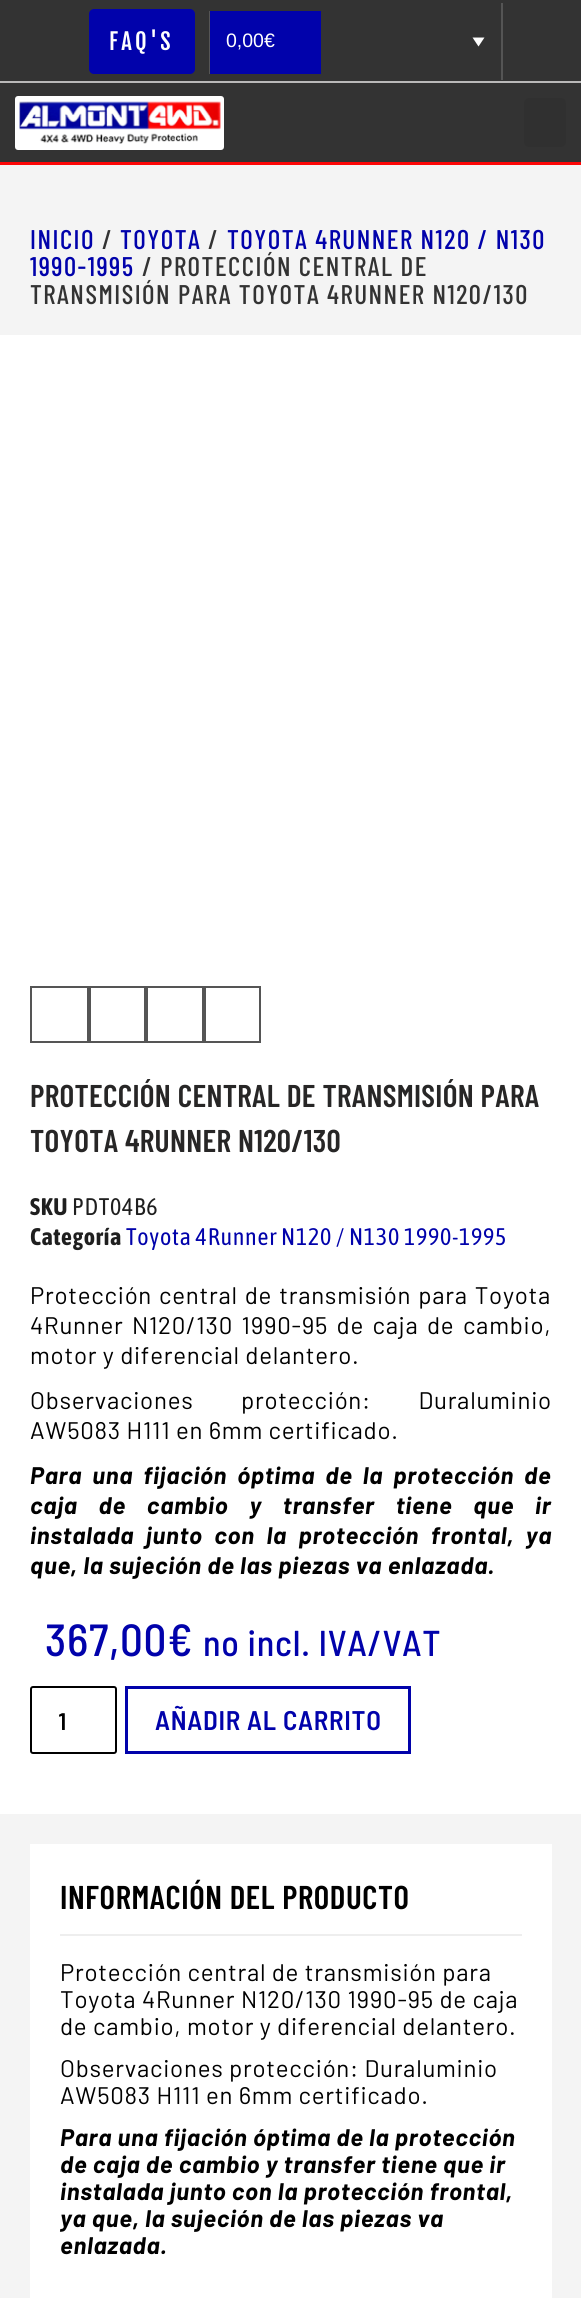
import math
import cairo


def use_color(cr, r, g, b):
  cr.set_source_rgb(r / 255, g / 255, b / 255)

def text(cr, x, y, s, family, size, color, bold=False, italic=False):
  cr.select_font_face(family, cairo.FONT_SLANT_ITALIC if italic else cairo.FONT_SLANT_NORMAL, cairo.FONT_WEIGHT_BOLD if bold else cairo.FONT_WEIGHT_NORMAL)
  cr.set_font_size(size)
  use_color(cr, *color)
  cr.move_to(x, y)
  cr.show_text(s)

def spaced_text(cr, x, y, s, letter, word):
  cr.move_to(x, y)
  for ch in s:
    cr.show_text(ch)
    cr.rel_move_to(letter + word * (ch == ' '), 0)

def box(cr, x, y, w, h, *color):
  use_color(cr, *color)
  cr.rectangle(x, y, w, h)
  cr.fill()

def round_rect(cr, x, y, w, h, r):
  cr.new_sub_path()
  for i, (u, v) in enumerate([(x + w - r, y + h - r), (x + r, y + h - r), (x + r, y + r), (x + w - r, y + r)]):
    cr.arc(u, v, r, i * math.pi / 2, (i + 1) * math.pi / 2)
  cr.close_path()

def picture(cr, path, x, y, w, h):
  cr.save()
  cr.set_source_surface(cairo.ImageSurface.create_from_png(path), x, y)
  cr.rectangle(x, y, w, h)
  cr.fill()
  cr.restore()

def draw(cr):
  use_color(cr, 255, 255, 255)
  cr.paint()
  box(cr, 0, 0, 581, 81, 51, 51, 51)
  box(cr, 0, 81, 581, 2, 186, 185, 185)
  use_color(cr, 1, 2, 171)
  round_rect(cr, 89, 9, 106, 65, 5)
  cr.fill()
  box(cr, 209, 11, 1, 63, 85, 85, 85)
  box(cr, 210, 11, 111, 63, 1, 2, 171)
  box(cr, 501, 3, 2, 77, 85, 85, 85)
  use_color(cr, 255, 255, 255)
  cr.new_path()
  cr.move_to(472.5, 37.5)
  cr.line_to(484.5, 37.5)
  cr.line_to(478.5, 46.5)
  cr.close_path()
  cr.fill()
  box(cr, 0, 83, 581, 79, 51, 51, 51)
  box(cr, 0, 162, 581, 3, 253, 7, 7)
  use_color(cr, 255, 255, 255)
  round_rect(cr, 15, 96, 209, 54, 3)
  cr.fill()
  picture(cr, "img_01.png", 19, 101, 202, 43)
  use_color(cr, 48, 48, 48)
  round_rect(cr, 524, 98, 42, 49, 5)
  cr.fill()
  box(cr, 0, 165, 581, 170, 244, 244, 244)
  cr.rectangle(31, 987, 57, 55)
  use_color(cr, 85, 85, 85)
  cr.stroke()
  cr.rectangle(90, 987, 55, 55)
  cr.stroke()
  cr.rectangle(147, 987, 56, 55)
  cr.stroke()
  cr.rectangle(205, 987, 55, 55)
  cr.stroke()
  round_rect(cr, 31, 1687, 85, 66, 2)
  use_color(cr, 0, 0, 0)
  cr.stroke()
  cr.rectangle(126.5, 1687.5, 283, 65)
  use_color(cr, 1, 2, 171)
  cr.set_line_width(3)
  cr.stroke()
  box(cr, 0, 1814, 581, 484, 244, 244, 244)
  box(cr, 30, 1844, 522, 454, 255, 255, 255)
  box(cr, 60, 1934, 462, 2, 238, 238, 238)
  cr.select_font_face("Fjalla One")
  cr.set_font_size(22.5)
  use_color(cr, 255, 255, 255)
  spaced_text(cr, 109, 50, "FAQ'S", 3.25, 0)
  text(cr, 226, 47, "0,00€", "Liberation Sans", 19.5, (255, 255, 255))
  cr.select_font_face("Barlow Condensed Medium")
  cr.set_font_size(27)
  use_color(cr, 1, 2, 171)
  spaced_text(cr, 30, 249, "INICIO", 1.5, 0)
  use_color(cr, 51, 51, 51)
  spaced_text(cr, 102, 249, "/", 1.5, 0)
  use_color(cr, 1, 2, 171)
  spaced_text(cr, 120, 249, "TOYOTA", 1.5, 0)
  use_color(cr, 51, 51, 51)
  spaced_text(cr, 208, 249, "/", 1.5, 0)
  use_color(cr, 1, 2, 171)
  spaced_text(cr, 227, 249, "TOYOTA 4RUNNER N120 / N130", 1.5, 0)
  spaced_text(cr, 30, 276, "1990-1995", 1.5, 0)
  use_color(cr, 51, 51, 51)
  spaced_text(cr, 142, 276, "/ PROTECCIÓN CENTRAL DE", 1.5, 0)
  spaced_text(cr, 30, 304, "TRANSMISIÓN PARA TOYOTA 4RUNNER N120/130", 1.5, 0)
  cr.select_font_face("Barlow Condensed SemiBold")
  cr.set_font_size(31.5)
  use_color(cr, 39, 38, 38)
  spaced_text(cr, 30, 1107, "PROTECCIÓN CENTRAL DE TRANSMISIÓN PARA", 0.3, 0)
  spaced_text(cr, 30, 1152, "TOYOTA 4RUNNER N120/130", 0.3, 0)
  cr.select_font_face("Asap Condensed", cairo.FONT_SLANT_NORMAL, cairo.FONT_WEIGHT_BOLD)
  cr.set_font_size(24)
  use_color(cr, 31, 31, 31)
  spaced_text(cr, 30, 1215, "SKU", 0.75, 0)
  cr.select_font_face("Asap Condensed")
  spaced_text(cr, 72, 1215, "PDT04B6", 0.75, 0)
  cr.select_font_face("Asap Condensed", cairo.FONT_SLANT_NORMAL, cairo.FONT_WEIGHT_BOLD)
  spaced_text(cr, 30, 1245, "Categoría", 0.75, 0)
  cr.select_font_face("Asap Condensed")
  use_color(cr, 1, 2, 171)
  spaced_text(cr, 126, 1245, "Toyota 4Runner N120 / N130 1990-1995", 0.75, 0)
  cr.select_font_face("Barlow")
  use_color(cr, 0, 0, 0)
  spaced_text(cr, 30, 1304, "Protección central de transmisión para Toyota", 0.75, 1.5)
  spaced_text(cr, 30, 1334, "4Runner N120/130 1990-95 de caja de cambio,", 0.75, 3)
  spaced_text(cr, 30, 1364, "motor y diferencial delantero.", 0.75, 0)
  spaced_text(cr, 30, 1409, "Observaciones protección: Duraluminio", 0.75, 42)
  spaced_text(cr, 30, 1439, "AW5083 H111 en 6mm certificado.", 0.75, 0)
  cr.select_font_face("Barlow", cairo.FONT_SLANT_ITALIC, cairo.FONT_WEIGHT_BOLD)
  spaced_text(cr, 30, 1484, "Para una fijación óptima de la protección de", 0.75, 4.75)
  spaced_text(cr, 30, 1514, "caja de cambio y transfer tiene que ir", 0.75, 15.5)
  spaced_text(cr, 30, 1544, "instalada junto con la protección frontal, ya", 0.75, 6.25)
  spaced_text(cr, 30, 1574, "que, la sujeción de las piezas va enlazada.", 0.75, 0)
  cr.select_font_face("Barlow Semi Condensed Medium")
  cr.set_font_size(45)
  use_color(cr, 1, 2, 171)
  spaced_text(cr, 45, 1656, "367,00€", 0.75, 0)
  cr.set_font_size(36)
  spaced_text(cr, 203, 1656, "no incl. IVA/VAT", 0.75, 0)
  text(cr, 58, 1730, "1", "Barlow SemiBold", 24, (0, 0, 0))
  cr.select_font_face("Barlow Semi Condensed SemiBold")
  cr.set_font_size(27)
  use_color(cr, 1, 2, 171)
  spaced_text(cr, 155, 1730, "AÑADIR AL CARRITO", 0.75, 0)
  cr.select_font_face("Barlow Condensed SemiBold")
  cr.set_font_size(33)
  use_color(cr, 0, 0, 0)
  spaced_text(cr, 60, 1909, "INFORMACIÓN DEL PRODUCTO", 0.6, 0)
  cr.select_font_face("Barlow")
  cr.set_font_size(24)
  spaced_text(cr, 60, 1981, "Protección central de transmisión para", 0.75, 0)
  spaced_text(cr, 60, 2008, "Toyota 4Runner N120/130 1990-95 de caja", 0.75, 0)
  spaced_text(cr, 60, 2035, "de cambio, motor y diferencial delantero.", 0.75, 0)
  spaced_text(cr, 60, 2077, "Observaciones protección: Duraluminio", 0.75, 0)
  spaced_text(cr, 60, 2104, "AW5083 H111 en 6mm certificado.", 0.75, 0)
  cr.select_font_face("Barlow", cairo.FONT_SLANT_ITALIC, cairo.FONT_WEIGHT_BOLD)
  spaced_text(cr, 60, 2146, "Para una fijación óptima de la protección", 0.75, 0)
  spaced_text(cr, 60, 2173, "de caja de cambio y transfer tiene que ir", 0.75, 0)
  spaced_text(cr, 60, 2200, "instalada junto con la protección frontal,", 0.75, 0)
  spaced_text(cr, 60, 2227, "ya que, la sujeción de las piezas va", 0.75, 0)
  spaced_text(cr, 60, 2254, "enlazada.", 0.75, 0)


surface = cairo.ImageSurface(cairo.FORMAT_RGB24, 581, 2298)
cr = cairo.Context(surface)
options = cairo.FontOptions()
options.set_hint_metrics(cairo.HINT_METRICS_OFF)
options.set_hint_style(cairo.HINT_STYLE_NONE)
cr.set_font_options(options)
cr.set_miter_limit(4)
draw(cr)
surface.write_to_png("out.png")
